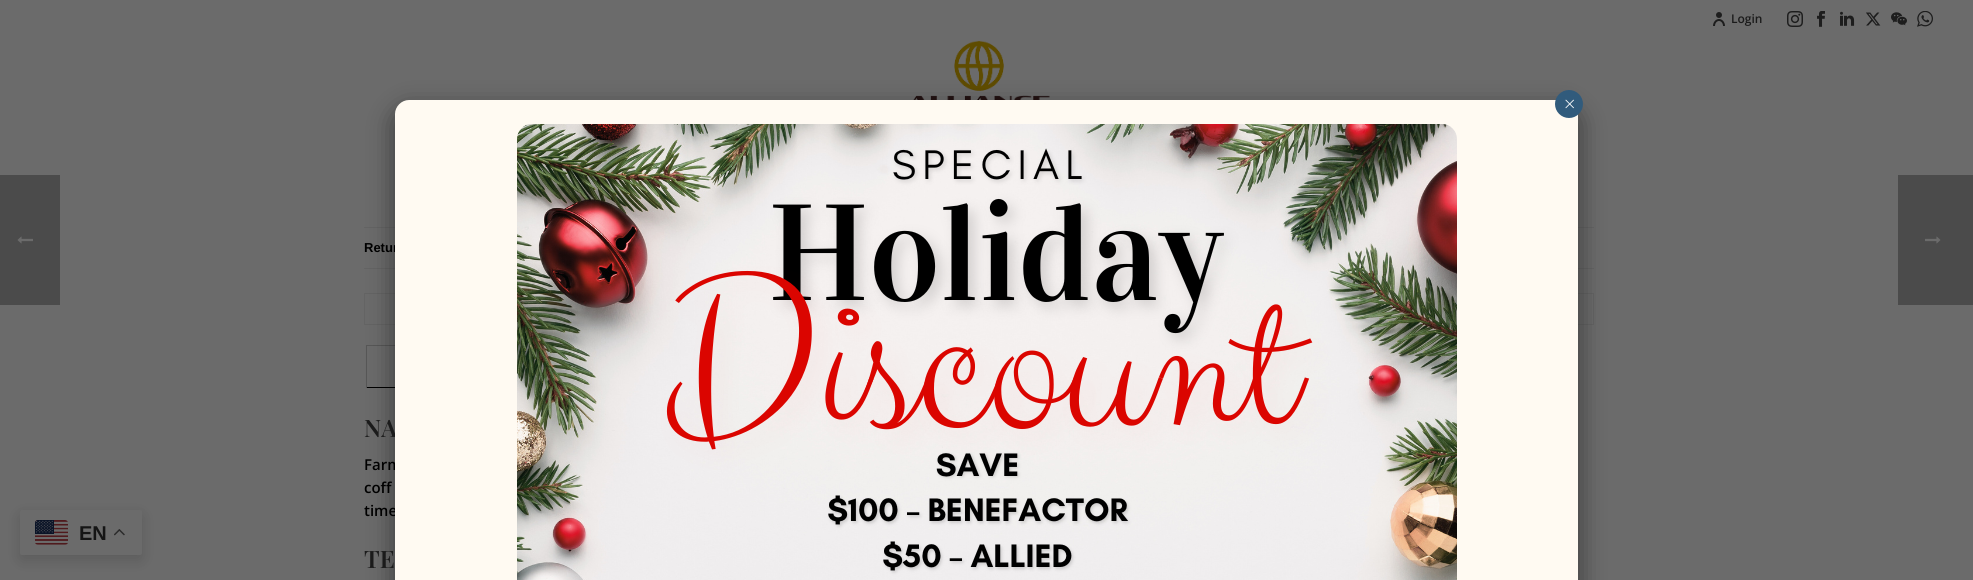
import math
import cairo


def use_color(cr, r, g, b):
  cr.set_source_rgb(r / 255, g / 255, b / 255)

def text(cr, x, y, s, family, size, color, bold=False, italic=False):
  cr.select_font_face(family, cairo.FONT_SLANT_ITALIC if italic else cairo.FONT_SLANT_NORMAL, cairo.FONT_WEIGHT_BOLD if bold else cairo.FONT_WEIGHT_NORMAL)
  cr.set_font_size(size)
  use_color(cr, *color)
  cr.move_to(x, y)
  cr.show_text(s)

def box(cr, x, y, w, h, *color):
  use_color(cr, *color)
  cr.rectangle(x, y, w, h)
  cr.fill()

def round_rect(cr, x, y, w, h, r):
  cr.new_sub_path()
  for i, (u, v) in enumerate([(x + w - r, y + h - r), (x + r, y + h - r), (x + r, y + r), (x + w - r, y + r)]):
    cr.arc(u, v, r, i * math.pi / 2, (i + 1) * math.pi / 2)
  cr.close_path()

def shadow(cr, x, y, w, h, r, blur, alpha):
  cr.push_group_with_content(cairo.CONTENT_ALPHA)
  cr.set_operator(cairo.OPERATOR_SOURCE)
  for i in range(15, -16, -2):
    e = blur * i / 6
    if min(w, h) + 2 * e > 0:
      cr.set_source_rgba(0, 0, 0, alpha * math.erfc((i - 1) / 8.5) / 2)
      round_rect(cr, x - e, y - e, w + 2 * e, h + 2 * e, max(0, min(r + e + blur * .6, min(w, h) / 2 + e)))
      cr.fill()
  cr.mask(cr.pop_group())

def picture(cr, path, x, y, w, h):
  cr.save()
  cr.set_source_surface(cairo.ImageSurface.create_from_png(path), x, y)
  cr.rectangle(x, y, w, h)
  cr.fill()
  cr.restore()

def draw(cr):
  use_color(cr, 107, 107, 107)
  cr.paint()
  picture(cr, "img_01.png", 1713, 12, 12, 14)
  picture(cr, "img_02.png", 1787, 11, 16, 16)
  picture(cr, "img_03.png", 1817, 11, 8, 16)
  picture(cr, "img_04.png", 1840, 11, 15, 15)
  picture(cr, "img_05.png", 1866, 12, 15, 14)
  picture(cr, "img_06.png", 1891, 12, 16, 14)
  picture(cr, "img_07.png", 1917, 11, 16, 16)
  picture(cr, "img_08.png", 913, 40, 137, 60)
  box(cr, 364, 227, 1230, 1, 100, 100, 100)
  box(cr, 364, 268, 1230, 1, 100, 100, 100)
  cr.rectangle(364.5, 293.5, 1229, 31)
  cr.set_line_width(1)
  cr.stroke()
  box(cr, 366, 345, 29, 1, 87, 87, 87)
  box(cr, 366, 387, 29, 1, 0, 0, 0)
  box(cr, 366, 345, 1, 43, 87, 87, 87)
  use_color(cr, 2, 2, 2)
  shadow(cr, 391, 106, 1191, 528, 18, 12, 0.37)
  box(cr, 0, 175, 60, 130, 75, 75, 75)
  picture(cr, "img_10.png", 17, 236, 16, 8)
  box(cr, 1898, 175, 75, 130, 75, 75, 75)
  picture(cr, "img_11.png", 1925, 236, 16, 8)
  use_color(cr, 0, 0, 0)
  shadow(cr, 20, 515, 122, 45, 2, 7.5, 0.15)
  use_color(cr, 107, 107, 107)
  round_rect(cr, 20, 510, 122, 45, 2)
  cr.fill()
  picture(cr, "img_12.png", 35, 520, 33, 25)
  picture(cr, "img_13.png", 114, 529, 11, 7)
  text(cr, 1731, 23, "Login", "Open Sans SemiBold", 12, (27, 27, 27))
  text(cr, 364, 252, "Retur", "Liberation Sans", 13, (0, 0, 0), bold=True)
  text(cr, 364, 437, "NA", "Playfair Display SemiBold", 24, (27, 27, 27))
  text(cr, 364, 470, "Farm", "Open Sans SemiBold", 15, (0, 0, 0))
  text(cr, 364, 493, "coff", "Open Sans SemiBold", 15, (0, 0, 0))
  text(cr, 364, 516, "time", "Open Sans SemiBold", 15, (0, 0, 0))
  text(cr, 364, 568, "TE", "Playfair Display SemiBold", 24, (27, 27, 27))
  use_color(cr, 255, 250, 242)
  cr.new_path()
  cr.move_to(409, 100)
  cr.line_to(1564, 100)
  cr.curve_to(1571.5, 100, 1578, 106.5, 1578, 114)
  cr.line_to(1578, 580)
  cr.line_to(395, 580)
  cr.line_to(395, 114)
  cr.curve_to(395, 106.5, 401.5, 100, 409, 100)
  cr.close_path()
  cr.fill()
  use_color(cr, 49, 91, 124)
  cr.arc(1569, 104, 14, 0, 2 * math.pi)
  cr.fill()
  text(cr, 1564, 111, "×", "Open Sans Light", 20, (255, 255, 255))
  picture(cr, "img_09.png", 517, 124, 940, 456)
  text(cr, 79, 540, "EN", "Liberation Sans", 20, (21, 21, 21), bold=True)


surface = cairo.ImageSurface(cairo.FORMAT_RGB24, 1973, 580)
cr = cairo.Context(surface)
options = cairo.FontOptions()
options.set_hint_metrics(cairo.HINT_METRICS_OFF)
options.set_hint_style(cairo.HINT_STYLE_NONE)
cr.set_font_options(options)
cr.set_miter_limit(4)
draw(cr)
surface.write_to_png("out.png")
